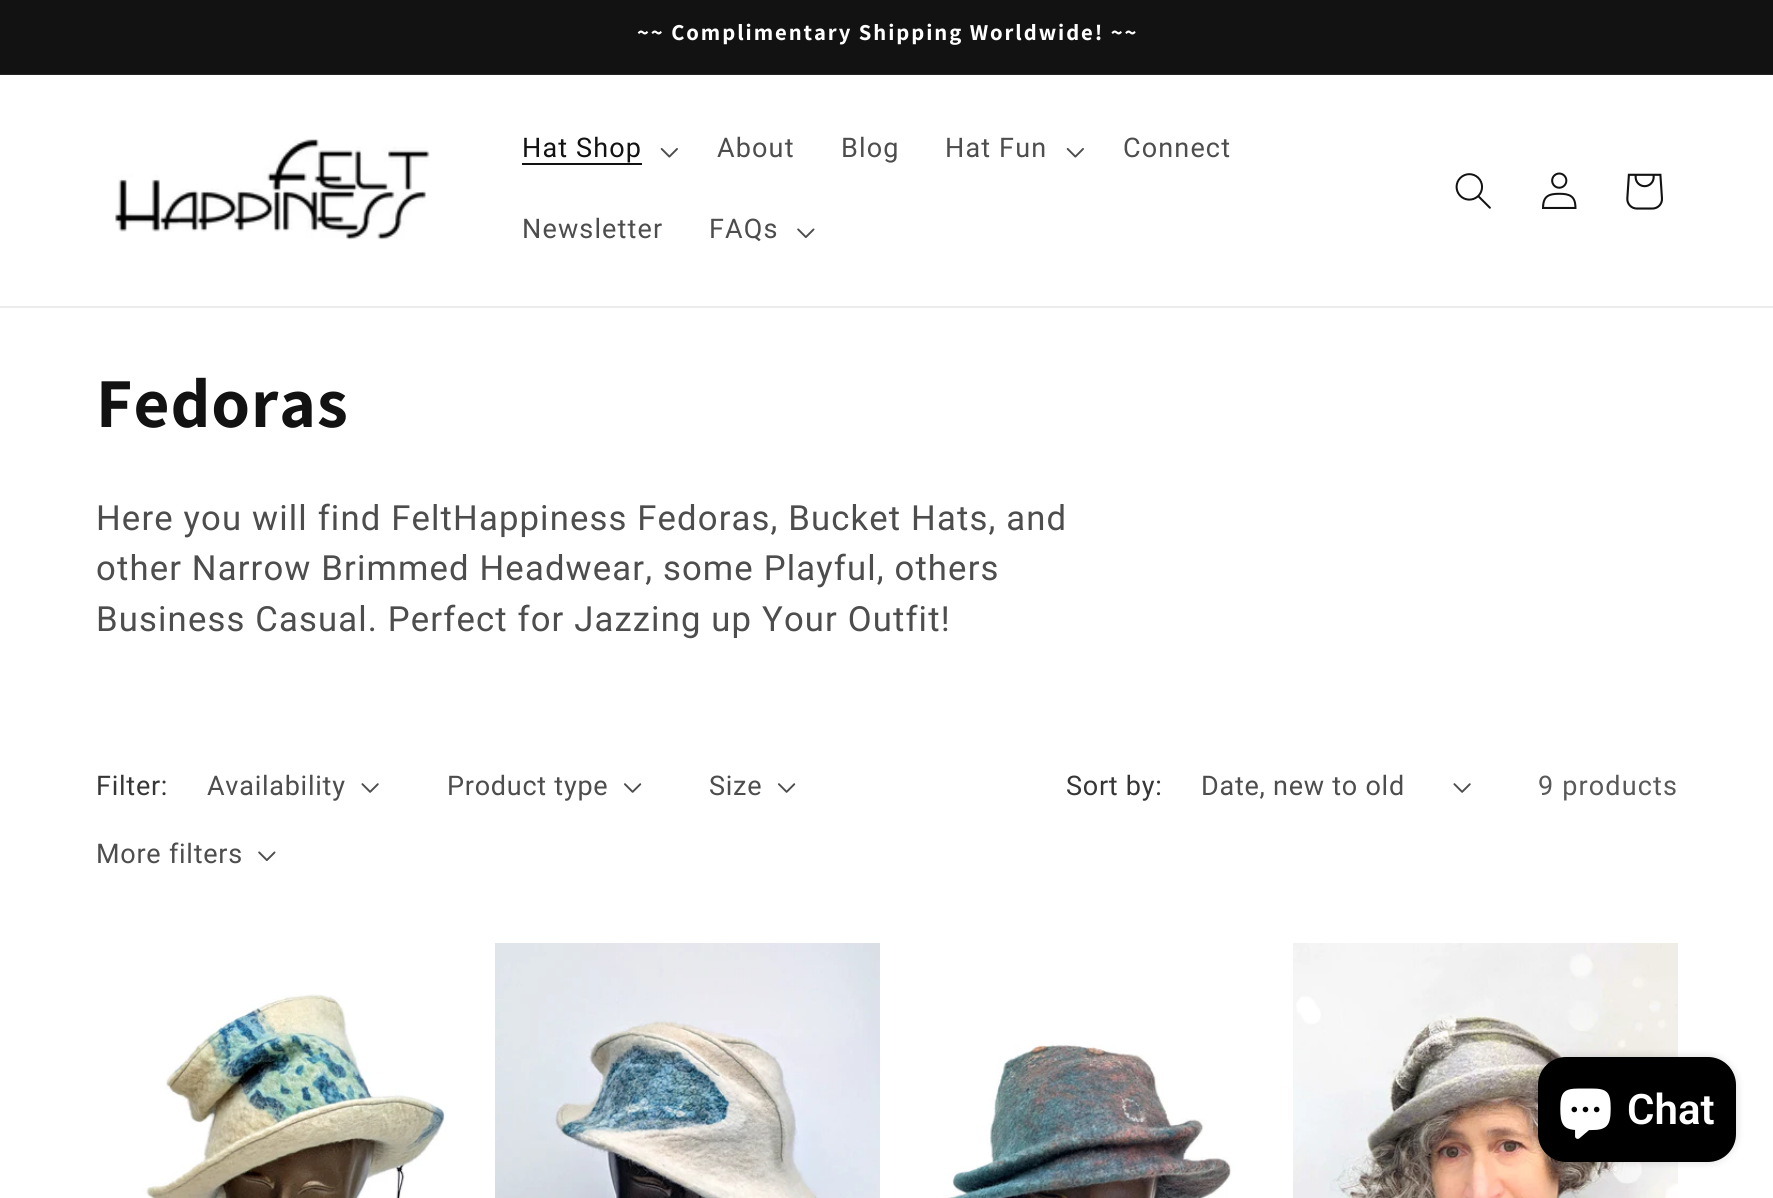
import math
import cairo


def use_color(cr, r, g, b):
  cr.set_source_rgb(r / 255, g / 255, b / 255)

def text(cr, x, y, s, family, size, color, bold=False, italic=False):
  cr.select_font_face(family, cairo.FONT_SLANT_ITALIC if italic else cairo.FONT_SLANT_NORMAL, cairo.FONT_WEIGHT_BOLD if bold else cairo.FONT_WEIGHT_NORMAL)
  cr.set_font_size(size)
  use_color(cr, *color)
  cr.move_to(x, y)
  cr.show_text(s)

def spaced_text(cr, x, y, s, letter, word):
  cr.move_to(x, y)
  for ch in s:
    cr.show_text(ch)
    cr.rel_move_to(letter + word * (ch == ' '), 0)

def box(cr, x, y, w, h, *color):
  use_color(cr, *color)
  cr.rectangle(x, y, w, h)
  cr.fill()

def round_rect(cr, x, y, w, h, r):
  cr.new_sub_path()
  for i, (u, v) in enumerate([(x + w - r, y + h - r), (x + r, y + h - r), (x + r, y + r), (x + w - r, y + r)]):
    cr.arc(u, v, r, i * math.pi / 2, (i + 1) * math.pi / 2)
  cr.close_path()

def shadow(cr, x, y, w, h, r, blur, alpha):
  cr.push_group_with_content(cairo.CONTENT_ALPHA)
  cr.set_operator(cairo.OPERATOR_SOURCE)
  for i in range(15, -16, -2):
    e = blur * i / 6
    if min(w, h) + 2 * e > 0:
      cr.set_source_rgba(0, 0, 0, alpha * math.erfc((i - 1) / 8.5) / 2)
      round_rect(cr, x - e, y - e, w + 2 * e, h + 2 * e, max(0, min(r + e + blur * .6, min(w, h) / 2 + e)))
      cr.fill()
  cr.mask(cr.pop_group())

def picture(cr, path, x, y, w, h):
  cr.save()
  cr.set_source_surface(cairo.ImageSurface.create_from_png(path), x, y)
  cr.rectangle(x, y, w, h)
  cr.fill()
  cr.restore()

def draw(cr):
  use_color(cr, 255, 255, 255)
  cr.paint()
  box(cr, 0, 0, 1773, 74, 18, 18, 18)
  box(cr, 0, 74, 1773, 1, 37, 37, 37)
  box(cr, 0, 306, 1773, 2, 236, 236, 236)
  picture(cr, "img_01.png", 115, 139, 315, 101)
  box(cr, 522, 163, 120, 2, 18, 18, 18)
  picture(cr, "img_02.png", 660, 148, 18, 10)
  picture(cr, "img_02.png", 1066, 148, 18, 10)
  picture(cr, "img_03.png", 797, 228, 18, 10)
  picture(cr, "img_04.png", 1455, 173, 36, 36)
  picture(cr, "img_05.png", 1542, 172, 35, 37)
  picture(cr, "img_06.png", 1626, 173, 37, 37)
  picture(cr, "img_07.png", 361, 783, 18, 10)
  picture(cr, "img_08.png", 624, 783, 18, 10)
  picture(cr, "img_08.png", 778, 783, 18, 10)
  picture(cr, "img_03.png", 258, 851, 18, 10)
  picture(cr, "img_07.png", 1453, 783, 18, 10)
  picture(cr, "img_09.png", 96, 943, 385, 255)
  picture(cr, "img_10.png", 495, 943, 385, 255)
  picture(cr, "img_11.png", 894, 943, 385, 255)
  picture(cr, "img_12.png", 1293, 943, 385, 255)
  use_color(cr, 0, 0, 0)
  shadow(cr, 1538, 1057, 198, 105, 28, 4.5, 0.15)
  use_color(cr, 0, 0, 0)
  round_rect(cr, 1538, 1057, 198, 105, 28)
  cr.fill()
  picture(cr, "img_13.png", 1560, 1088, 51, 51)
  cr.select_font_face("Assistant", cairo.FONT_SLANT_NORMAL, cairo.FONT_WEIGHT_BOLD)
  cr.set_font_size(22.75)
  use_color(cr, 255, 255, 255)
  spaced_text(cr, 637, 40, "~~ Complimentary Shipping Worldwide! ~~", 1.95, 0)
  cr.select_font_face("Roboto")
  cr.set_font_size(27)
  use_color(cr, 18, 18, 18)
  spaced_text(cr, 522, 157, "Hat Shop", 1.15, 0)
  use_color(cr, 77, 77, 77)
  spaced_text(cr, 717, 157, "About", 1.15, 0)
  spaced_text(cr, 841, 157, "Blog", 1.15, 0)
  spaced_text(cr, 945, 157, "Hat Fun", 1.15, 0)
  spaced_text(cr, 1123, 157, "Connect", 1.15, 0)
  spaced_text(cr, 522, 238, "Newsletter", 1.15, 0)
  spaced_text(cr, 709, 238, "FAQs", 1.15, 0)
  cr.select_font_face("Assistant", cairo.FONT_SLANT_NORMAL, cairo.FONT_WEIGHT_BOLD)
  cr.set_font_size(70)
  use_color(cr, 18, 18, 18)
  spaced_text(cr, 96, 427, "Fedoras", 1, 0)
  cr.select_font_face("Roboto")
  cr.set_font_size(34.65)
  use_color(cr, 77, 77, 77)
  spaced_text(cr, 96, 530, "Here you will find FeltHappiness Fedoras, Bucket Hats, and", 1.15, 0)
  spaced_text(cr, 96, 580, "other Narrow Brimmed Headwear, some Playful, others", 1.15, 0)
  spaced_text(cr, 96, 631, "Business Casual. Perfect for Jazzing up Your Outfit!", 1.15, 0)
  cr.set_font_size(27)
  use_color(cr, 54, 54, 54)
  spaced_text(cr, 96, 795, "Filter:", 0.75, 0)
  use_color(cr, 77, 77, 77)
  spaced_text(cr, 207, 795, "Availability", 0.75, 0)
  spaced_text(cr, 447, 795, "Product type", 0.75, 0)
  spaced_text(cr, 709, 795, "Size", 0.75, 0)
  spaced_text(cr, 96, 863, "More filters", 0.75, 0)
  use_color(cr, 54, 54, 54)
  spaced_text(cr, 1066, 795, "Sort by:", 0.75, 0)
  use_color(cr, 77, 77, 77)
  spaced_text(cr, 1201, 795, "Date, new to old", 0.75, 0)
  use_color(cr, 89, 89, 89)
  spaced_text(cr, 1538, 795, "9 products", 1.15, 0)
  text(cr, 1627, 1124, "Chat", "Roboto SemiBold", 42, (255, 255, 255))


surface = cairo.ImageSurface(cairo.FORMAT_RGB24, 1773, 1198)
cr = cairo.Context(surface)
options = cairo.FontOptions()
options.set_hint_metrics(cairo.HINT_METRICS_OFF)
options.set_hint_style(cairo.HINT_STYLE_NONE)
cr.set_font_options(options)
cr.set_miter_limit(4)
draw(cr)
surface.write_to_png("out.png")
